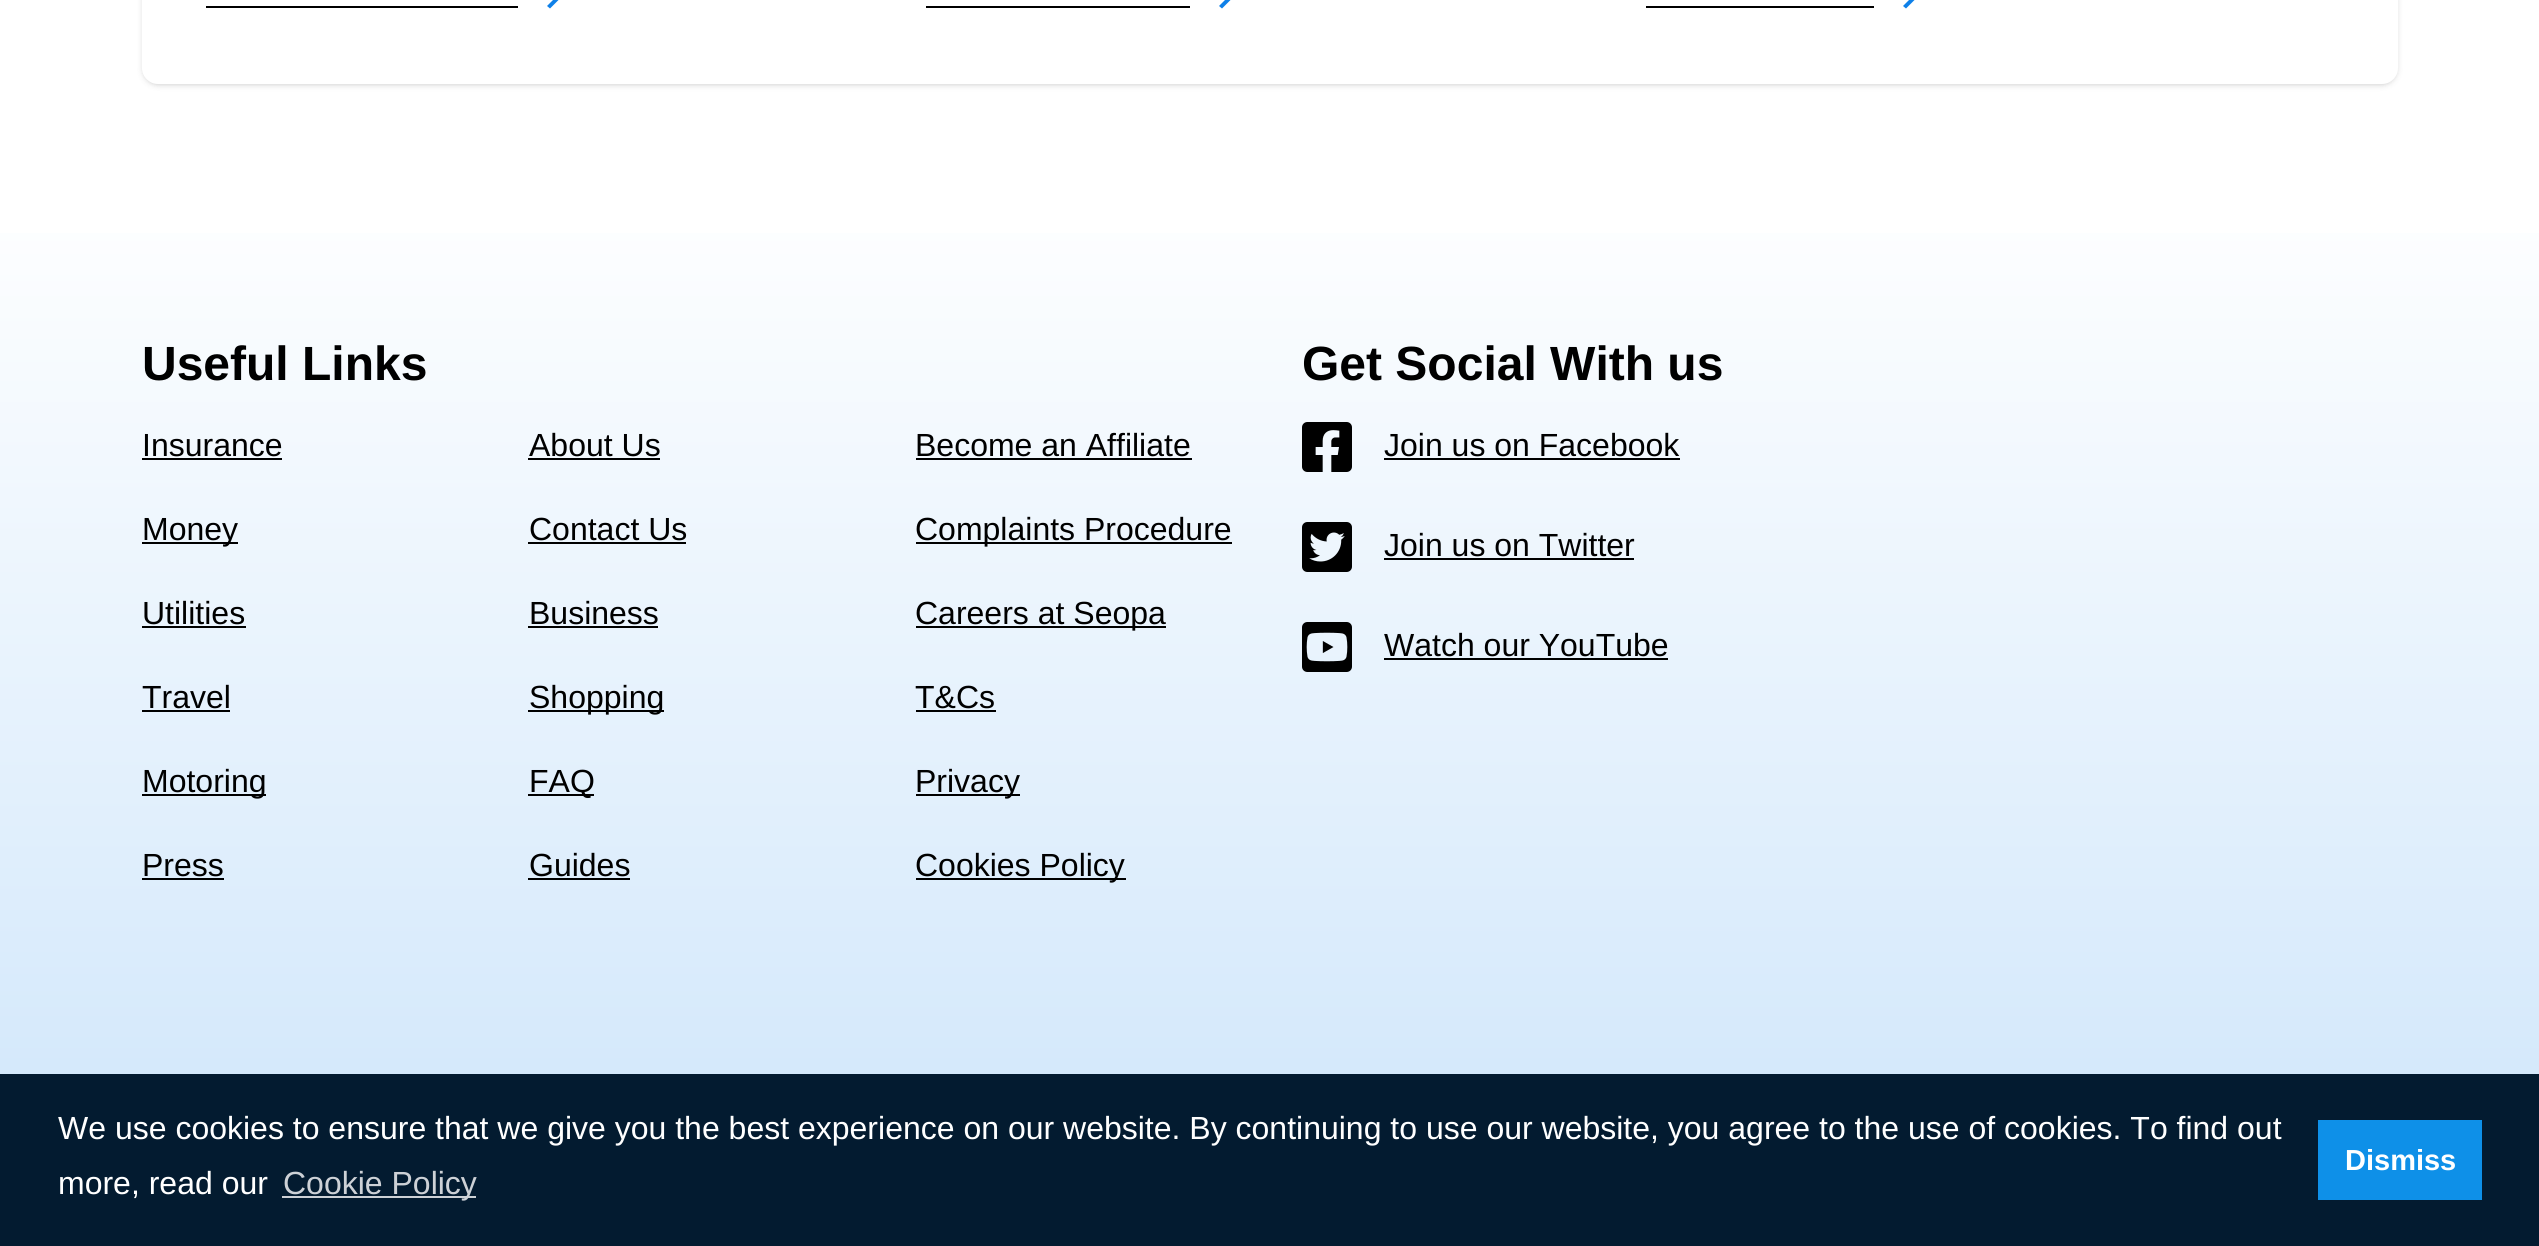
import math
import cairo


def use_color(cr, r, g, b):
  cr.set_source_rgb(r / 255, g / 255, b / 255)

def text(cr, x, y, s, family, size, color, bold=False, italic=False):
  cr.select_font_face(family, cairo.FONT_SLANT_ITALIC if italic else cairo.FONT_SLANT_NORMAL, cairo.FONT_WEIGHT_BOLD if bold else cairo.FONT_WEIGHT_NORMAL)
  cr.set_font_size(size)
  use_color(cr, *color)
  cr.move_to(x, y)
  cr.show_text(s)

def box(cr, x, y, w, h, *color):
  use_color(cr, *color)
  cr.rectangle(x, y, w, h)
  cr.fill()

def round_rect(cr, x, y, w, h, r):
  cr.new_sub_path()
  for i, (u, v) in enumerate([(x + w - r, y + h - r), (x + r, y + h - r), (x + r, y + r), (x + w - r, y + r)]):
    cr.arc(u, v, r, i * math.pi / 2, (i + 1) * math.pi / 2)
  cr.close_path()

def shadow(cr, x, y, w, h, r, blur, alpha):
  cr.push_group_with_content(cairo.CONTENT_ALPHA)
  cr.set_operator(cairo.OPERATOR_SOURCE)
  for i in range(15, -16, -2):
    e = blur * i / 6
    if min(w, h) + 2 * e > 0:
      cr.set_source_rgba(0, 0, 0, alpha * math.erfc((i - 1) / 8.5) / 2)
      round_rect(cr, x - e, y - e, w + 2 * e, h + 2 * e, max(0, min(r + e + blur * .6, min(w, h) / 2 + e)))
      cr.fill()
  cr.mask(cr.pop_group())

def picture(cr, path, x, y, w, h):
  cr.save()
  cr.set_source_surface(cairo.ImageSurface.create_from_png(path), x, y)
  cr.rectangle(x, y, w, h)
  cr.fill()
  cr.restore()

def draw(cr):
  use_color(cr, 255, 255, 255)
  cr.paint()
  use_color(cr, 0, 0, 0)
  shadow(cr, 144, -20, 2252, 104, 14, 2, 0.1)
  shadow(cr, 142, -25, 2256, 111, 16, 3, 0.1)
  use_color(cr, 255, 255, 255)
  round_rect(cr, 142, -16, 2256, 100, 16)
  cr.fill()
  box(cr, 206, 6, 312, 2, 0, 0, 0)
  use_color(cr, 14, 128, 232)
  cr.new_path()
  cr.move_to(550, -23.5)
  cr.line_to(547, -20.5)
  cr.line_to(558.5, -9.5)
  cr.line_to(534, -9.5)
  cr.line_to(534, -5.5)
  cr.line_to(558.5, -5.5)
  cr.line_to(547, 6)
  cr.line_to(550, 8.5)
  cr.line_to(566, -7.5)
  cr.close_path()
  cr.fill()
  box(cr, 926, 6, 264, 2, 0, 0, 0)
  use_color(cr, 14, 128, 232)
  cr.new_path()
  cr.move_to(1222, -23.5)
  cr.line_to(1219, -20.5)
  cr.line_to(1230.5, -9.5)
  cr.line_to(1206, -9.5)
  cr.line_to(1206, -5.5)
  cr.line_to(1230.5, -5.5)
  cr.line_to(1219, 6)
  cr.line_to(1222, 8.5)
  cr.line_to(1238, -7.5)
  cr.close_path()
  cr.fill()
  box(cr, 1646, 6, 228, 2, 0, 0, 0)
  use_color(cr, 14, 128, 232)
  cr.new_path()
  cr.move_to(1906, -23.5)
  cr.line_to(1903, -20.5)
  cr.line_to(1914.5, -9.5)
  cr.line_to(1890, -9.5)
  cr.line_to(1890, -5.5)
  cr.line_to(1914.5, -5.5)
  cr.line_to(1903, 6)
  cr.line_to(1906, 8.5)
  cr.line_to(1922, -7.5)
  cr.close_path()
  cr.fill()
  gradient = cairo.LinearGradient(1270, 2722, 1270, 180)
  gradient.add_color_stop_rgba(0, 0.529, 0.753, 0.957, 1)
  gradient.add_color_stop_rgba(1, 1, 1, 1, 1)
  cr.set_source(gradient)
  cr.rectangle(0, 233, 2539, 841)
  cr.fill()
  box(cr, 142, 458, 140, 2, 0, 0, 0)
  box(cr, 142, 542, 96, 2, 0, 0, 0)
  box(cr, 142, 626, 104, 2, 0, 0, 0)
  box(cr, 142, 710, 88, 2, 0, 0, 0)
  box(cr, 142, 794, 124, 2, 0, 0, 0)
  box(cr, 142, 878, 82, 2, 0, 0, 0)
  box(cr, 528, 458, 132, 2, 0, 0, 0)
  box(cr, 528, 542, 158, 2, 0, 0, 0)
  box(cr, 528, 626, 130, 2, 0, 0, 0)
  box(cr, 528, 710, 136, 2, 0, 0, 0)
  box(cr, 528, 794, 66, 2, 0, 0, 0)
  box(cr, 528, 878, 102, 2, 0, 0, 0)
  box(cr, 916, 458, 276, 2, 0, 0, 0)
  box(cr, 916, 542, 316, 2, 0, 0, 0)
  box(cr, 916, 626, 250, 2, 0, 0, 0)
  box(cr, 916, 710, 80, 2, 0, 0, 0)
  box(cr, 916, 794, 104, 2, 0, 0, 0)
  box(cr, 916, 878, 210, 2, 0, 0, 0)
  picture(cr, "img_01.png", 1302, 422, 50, 50)
  box(cr, 1384, 458, 296, 2, 0, 0, 0)
  picture(cr, "img_02.png", 1302, 522, 50, 50)
  box(cr, 1384, 558, 250, 2, 0, 0, 0)
  picture(cr, "img_03.png", 1302, 622, 50, 50)
  box(cr, 1384, 658, 284, 2, 0, 0, 0)
  box(cr, 0, 1074, 2539, 172, 3, 27, 48)
  box(cr, 282, 1196, 194, 2, 205, 209, 214)
  box(cr, 2318, 1120, 164, 80, 14, 144, 232)
  text(cr, 142, 380, "Useful Links", "Liberation Sans", 48, (0, 0, 0), bold=True)
  text(cr, 142, 456, "Insurance", "Liberation Sans", 32, (0, 0, 0))
  text(cr, 142, 540, "Money", "Liberation Sans", 32, (0, 0, 0))
  text(cr, 142, 624, "Utilities", "Liberation Sans", 32, (0, 0, 0))
  text(cr, 142, 708, "Travel", "Liberation Sans", 32, (0, 0, 0))
  text(cr, 142, 792, "Motoring", "Liberation Sans", 32, (0, 0, 0))
  text(cr, 142, 876, "Press", "Liberation Sans", 32, (0, 0, 0))
  text(cr, 529, 456, "About Us", "Liberation Sans", 32, (0, 0, 0))
  text(cr, 529, 540, "Contact Us", "Liberation Sans", 32, (0, 0, 0))
  text(cr, 529, 624, "Business", "Liberation Sans", 32, (0, 0, 0))
  text(cr, 529, 708, "Shopping", "Liberation Sans", 32, (0, 0, 0))
  text(cr, 529, 792, "FAQ", "Liberation Sans", 32, (0, 0, 0))
  text(cr, 529, 876, "Guides", "Liberation Sans", 32, (0, 0, 0))
  text(cr, 915, 456, "Become an Affiliate", "Liberation Sans", 32, (0, 0, 0))
  text(cr, 915, 540, "Complaints Procedure", "Liberation Sans", 32, (0, 0, 0))
  text(cr, 915, 624, "Careers at Seopa", "Liberation Sans", 32, (0, 0, 0))
  text(cr, 915, 708, "T&Cs", "Liberation Sans", 32, (0, 0, 0))
  text(cr, 915, 792, "Privacy", "Liberation Sans", 32, (0, 0, 0))
  text(cr, 915, 876, "Cookies Policy", "Liberation Sans", 32, (0, 0, 0))
  text(cr, 1302, 380, "Get Social With us", "Liberation Sans", 48, (0, 0, 0), bold=True)
  text(cr, 1384, 456, "Join us on Facebook", "Liberation Sans", 32, (0, 0, 0))
  text(cr, 1384, 556, "Join us on Twitter", "Liberation Sans", 32, (0, 0, 0))
  text(cr, 1384, 656, "Watch our YouTube", "Liberation Sans", 32, (0, 0, 0))
  text(cr, 58, 1139, "We use cookies to ensure that we give you the best experience on our website. By continuing to use our website, you agree to the use of cookies. To find out", "Liberation Sans", 32, (255, 255, 255))
  text(cr, 58, 1194, "more, read our", "Liberation Sans", 32, (255, 255, 255))
  text(cr, 283, 1194, "Cookie Policy", "Liberation Sans", 32, (205, 209, 214))
  text(cr, 2345, 1170, "Dismiss", "Liberation Sans", 29, (255, 255, 255), bold=True)


surface = cairo.ImageSurface(cairo.FORMAT_RGB24, 2539, 1246)
cr = cairo.Context(surface)
options = cairo.FontOptions()
options.set_hint_metrics(cairo.HINT_METRICS_OFF)
options.set_hint_style(cairo.HINT_STYLE_NONE)
cr.set_font_options(options)
cr.set_miter_limit(4)
draw(cr)
surface.write_to_png("out.png")
